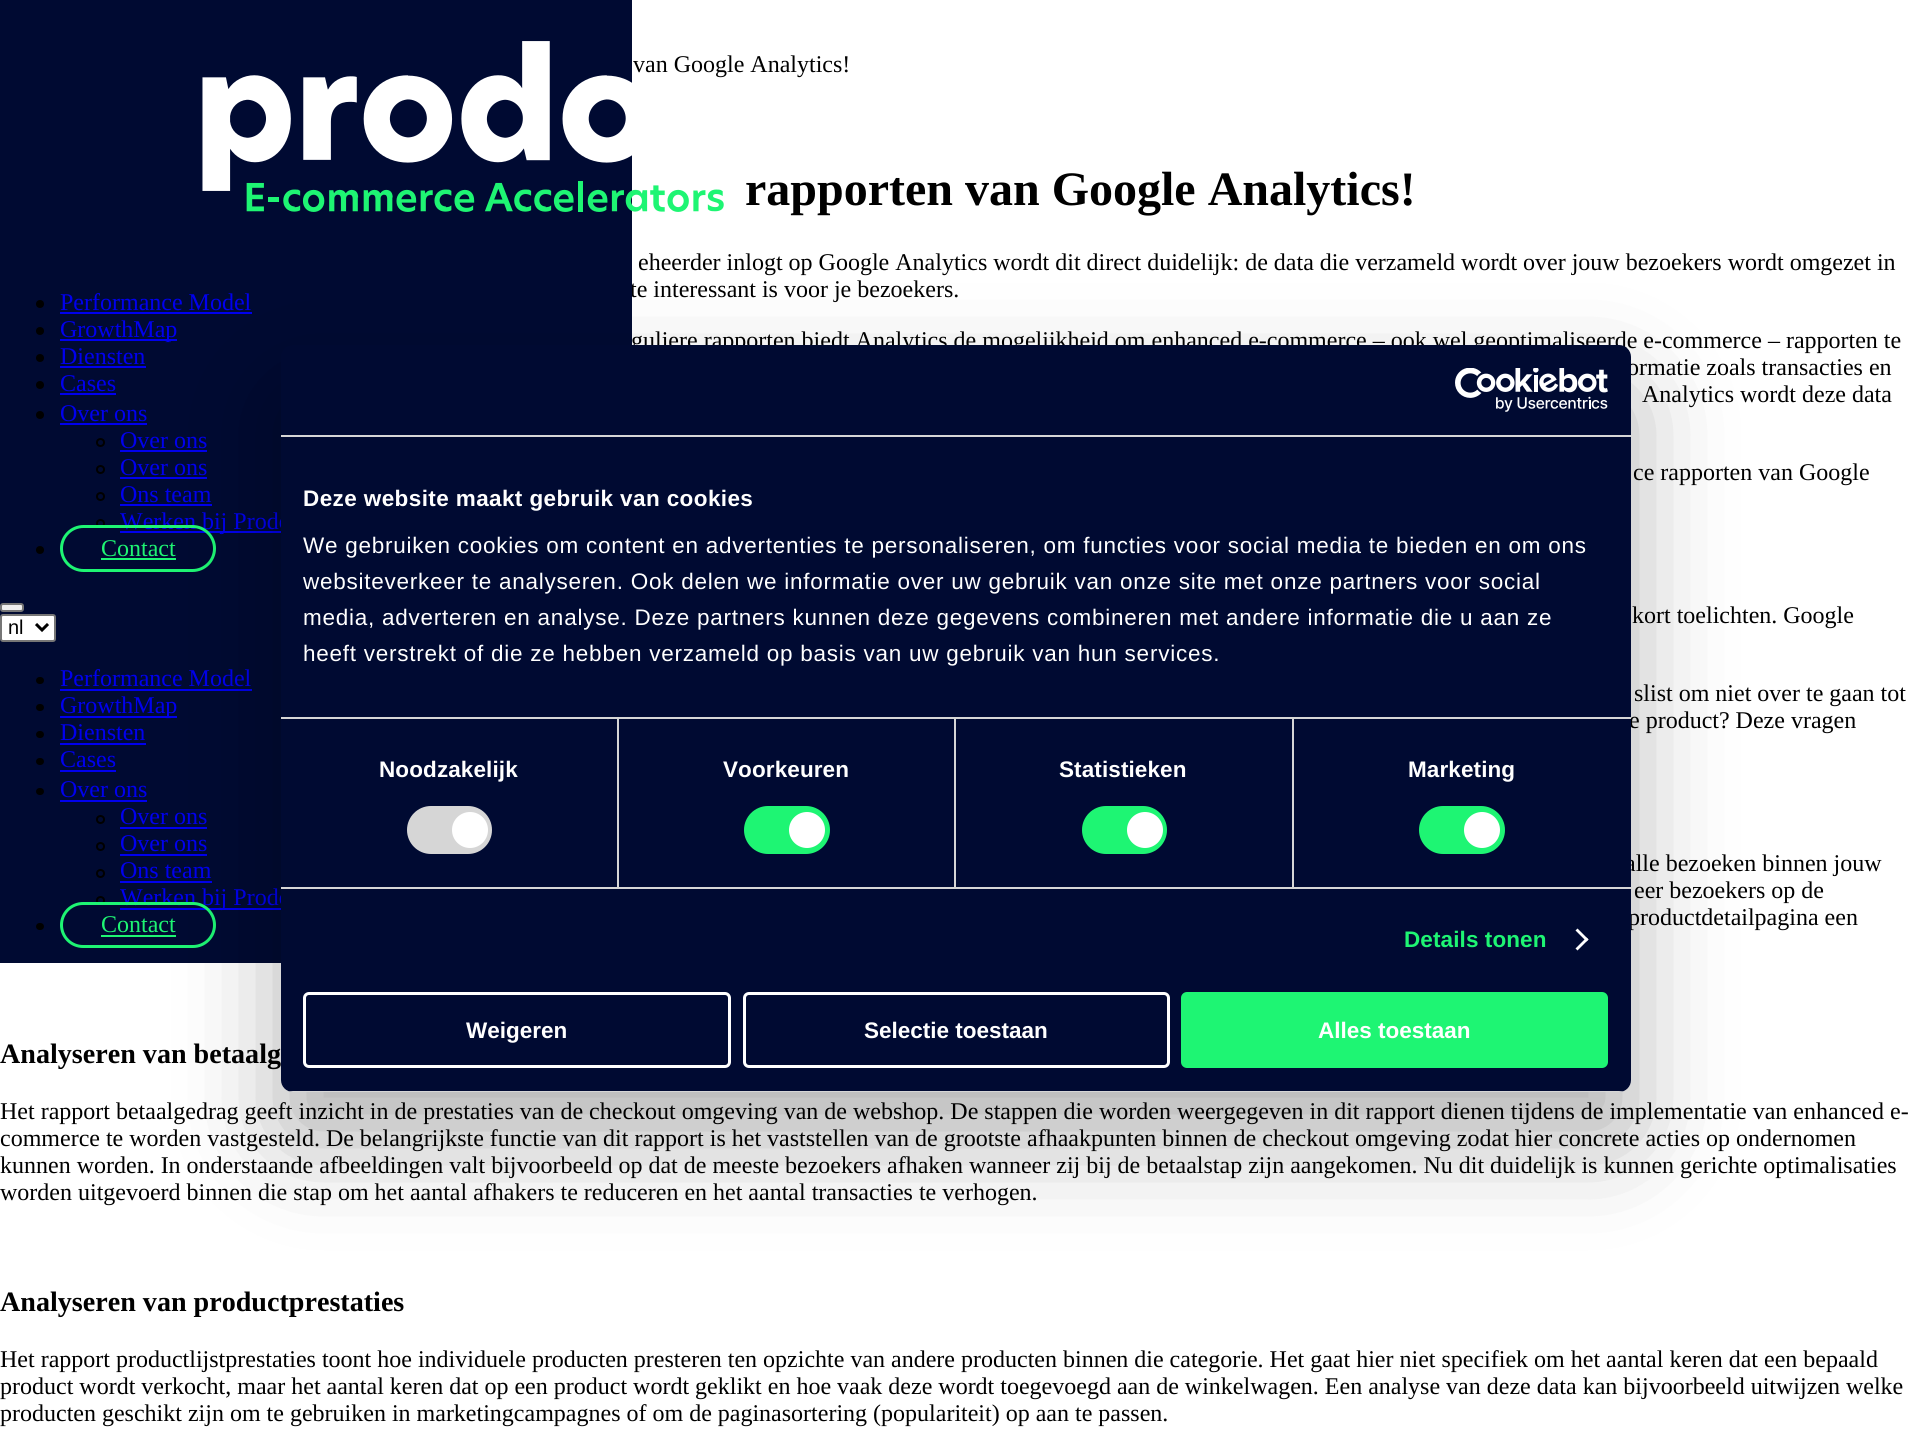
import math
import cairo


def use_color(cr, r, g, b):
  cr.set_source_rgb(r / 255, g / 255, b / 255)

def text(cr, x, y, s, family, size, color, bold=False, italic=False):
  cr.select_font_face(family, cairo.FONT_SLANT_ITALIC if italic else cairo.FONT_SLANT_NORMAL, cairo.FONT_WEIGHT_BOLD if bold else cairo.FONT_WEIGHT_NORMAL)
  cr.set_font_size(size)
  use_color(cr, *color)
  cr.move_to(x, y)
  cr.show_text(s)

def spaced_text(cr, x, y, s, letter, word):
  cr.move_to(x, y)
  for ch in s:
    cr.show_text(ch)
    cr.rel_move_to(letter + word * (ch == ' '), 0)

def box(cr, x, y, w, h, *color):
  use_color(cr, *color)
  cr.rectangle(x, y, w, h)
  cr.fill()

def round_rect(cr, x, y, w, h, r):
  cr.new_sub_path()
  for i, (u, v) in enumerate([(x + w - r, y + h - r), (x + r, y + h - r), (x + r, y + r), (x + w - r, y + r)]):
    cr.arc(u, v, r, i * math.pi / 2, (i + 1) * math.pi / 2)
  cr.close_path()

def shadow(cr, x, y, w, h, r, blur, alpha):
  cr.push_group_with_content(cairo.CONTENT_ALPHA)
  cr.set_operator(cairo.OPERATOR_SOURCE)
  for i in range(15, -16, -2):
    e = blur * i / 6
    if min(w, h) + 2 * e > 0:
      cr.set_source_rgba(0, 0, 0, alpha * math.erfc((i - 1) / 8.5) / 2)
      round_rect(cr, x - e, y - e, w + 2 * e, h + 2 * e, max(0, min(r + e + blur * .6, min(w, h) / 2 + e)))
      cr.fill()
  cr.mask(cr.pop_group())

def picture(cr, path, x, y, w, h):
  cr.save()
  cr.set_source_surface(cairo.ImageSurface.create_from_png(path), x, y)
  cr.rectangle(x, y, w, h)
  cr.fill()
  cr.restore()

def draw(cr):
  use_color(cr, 255, 255, 255)
  cr.paint()
  text(cr, 633, 72, "van Google Analytics!", "Liberation Serif", 24, (0, 0, 0))
  text(cr, 745, 205, "rapporten van Google Analytics!", "Liberation Serif", 48, (0, 0, 0), bold=True)
  text(cr, 638, 270, "eheerder inlogt op Google Analytics wordt dit direct duidelijk: de data die verzameld wordt over jouw bezoekers wordt omgezet in", "Liberation Serif", 24, (0, 0, 0))
  text(cr, 630, 297, "te interessant is voor je bezoekers.", "Liberation Serif", 24, (0, 0, 0))
  text(cr, 631, 348, "guliere rapporten biedt Analytics de mogelijkheid om enhanced e-commerce – ook wel geoptimaliseerde e-commerce – rapporten te", "Liberation Serif", 24, (0, 0, 0))
  text(cr, 1627, 375, "ormatie zoals transacties en", "Liberation Serif", 24, (0, 0, 0))
  text(cr, 1642, 402, "Analytics wordt deze data", "Liberation Serif", 24, (0, 0, 0))
  text(cr, 1633, 480, "ce rapporten van Google", "Liberation Serif", 24, (0, 0, 0))
  text(cr, 1632, 623, "kort toelichten. Google", "Liberation Serif", 24, (0, 0, 0))
  text(cr, 1634, 701, "slist om niet over te gaan tot", "Liberation Serif", 24, (0, 0, 0))
  text(cr, 1629, 728, "e product? Deze vragen", "Liberation Serif", 24, (0, 0, 0))
  text(cr, 1625, 871, "alle bezoeken binnen jouw", "Liberation Serif", 24, (0, 0, 0))
  text(cr, 1634, 898, "eer bezoekers op de", "Liberation Serif", 24, (0, 0, 0))
  text(cr, 1628, 925, "productdetailpagina een", "Liberation Serif", 24, (0, 0, 0))
  text(cr, 0, 1063, "Analyseren van betaalg", "Liberation Serif", 28.1, (0, 0, 0), bold=True)
  text(cr, 0, 1119, "Het rapport betaalgedrag geeft inzicht in de prestaties van de checkout omgeving van de webshop. De stappen die worden weergegeven in dit rapport dienen tijdens de implementatie van enhanced e-", "Liberation Serif", 24, (0, 0, 0))
  text(cr, 0, 1146, "commerce te worden vastgesteld. De belangrijkste functie van dit rapport is het vaststellen van de grootste afhaakpunten binnen de checkout omgeving zodat hier concrete acties op ondernomen", "Liberation Serif", 24, (0, 0, 0))
  text(cr, 0, 1173, "kunnen worden. In onderstaande afbeeldingen valt bijvoorbeeld op dat de meeste bezoekers afhaken wanneer zij bij de betaalstap zijn aangekomen. Nu dit duidelijk is kunnen gerichte optimalisaties", "Liberation Serif", 24, (0, 0, 0))
  text(cr, 0, 1200, "worden uitgevoerd binnen die stap om het aantal afhakers te reduceren en het aantal transacties te verhogen.", "Liberation Serif", 24, (0, 0, 0))
  text(cr, 0, 1311, "Analyseren van productprestaties", "Liberation Serif", 28.1, (0, 0, 0), bold=True)
  text(cr, 0, 1367, "Het rapport productlijstprestaties toont hoe individuele producten presteren ten opzichte van andere producten binnen die categorie. Het gaat hier niet specifiek om het aantal keren dat een bepaald", "Liberation Serif", 24, (0, 0, 0))
  text(cr, 0, 1394, "product wordt verkocht, maar het aantal keren dat op een product wordt geklikt en hoe vaak deze wordt toegevoegd aan de winkelwagen. Een analyse van deze data kan bijvoorbeeld uitwijzen welke", "Liberation Serif", 24, (0, 0, 0))
  text(cr, 0, 1421, "producten geschikt zijn om te gebruiken in marketingcampagnes of om de paginasortering (populariteit) op aan te passen.", "Liberation Serif", 24, (0, 0, 0))
  box(cr, 0, 0, 632, 963, 0, 10, 50)
  picture(cr, "img_01.png", 202, 41, 522, 171)
  use_color(cr, 0, 0, 0)
  cr.arc(40, 304, 4, 0, 2 * math.pi)
  cr.fill()
  text(cr, 60, 310, "Performance Model", "Liberation Serif", 24, (0, 0, 238))
  box(cr, 60, 312, 192, 2, 0, 0, 238)
  use_color(cr, 0, 0, 0)
  cr.new_path()
  cr.arc(40, 331, 4, 0, 2 * math.pi)
  cr.fill()
  box(cr, 60, 339, 117, 2, 0, 0, 238)
  text(cr, 60, 337, "GrowthMap", "Liberation Serif", 24, (0, 0, 238))
  use_color(cr, 0, 0, 0)
  cr.new_path()
  cr.arc(40, 358, 4, 0, 2 * math.pi)
  cr.fill()
  text(cr, 60, 364, "Diensten", "Liberation Serif", 24, (0, 0, 238))
  box(cr, 60, 366, 86, 2, 0, 0, 238)
  use_color(cr, 0, 0, 0)
  cr.new_path()
  cr.arc(40, 385, 4, 0, 2 * math.pi)
  cr.fill()
  text(cr, 60, 391, "Cases", "Liberation Serif", 24, (0, 0, 238))
  box(cr, 60, 393, 56, 2, 0, 0, 238)
  use_color(cr, 0, 0, 0)
  cr.new_path()
  cr.arc(40, 415, 4, 0, 2 * math.pi)
  cr.fill()
  text(cr, 60, 421, "Over ons", "Liberation Serif", 24, (0, 0, 238))
  box(cr, 60, 423, 87, 2, 0, 0, 238)
  cr.new_path()
  cr.arc(100.5, 442.5, 3.5, 0, 2 * math.pi)
  use_color(cr, 0, 0, 0)
  cr.stroke()
  text(cr, 120, 448, "Over ons", "Liberation Serif", 24, (0, 0, 238))
  box(cr, 120, 450, 87, 2, 0, 0, 238)
  cr.new_path()
  cr.arc(100.5, 469.5, 3.5, 0, 2 * math.pi)
  use_color(cr, 0, 0, 0)
  cr.stroke()
  text(cr, 120, 475, "Over ons", "Liberation Serif", 24, (0, 0, 238))
  box(cr, 120, 477, 87, 2, 0, 0, 238)
  cr.new_path()
  cr.arc(100.5, 496.5, 3.5, 0, 2 * math.pi)
  use_color(cr, 0, 0, 0)
  cr.stroke()
  text(cr, 120, 502, "Ons team", "Liberation Serif", 24, (0, 0, 238))
  box(cr, 120, 504, 92, 2, 0, 0, 238)
  cr.new_path()
  cr.arc(100.5, 523.5, 3.5, 0, 2 * math.pi)
  use_color(cr, 0, 0, 0)
  cr.stroke()
  box(cr, 120, 531, 161, 2, 0, 0, 238)
  text(cr, 120, 529, "Werken bij Prodo", "Liberation Serif", 24, (0, 0, 238))
  use_color(cr, 0, 0, 0)
  cr.new_path()
  cr.arc(40, 550, 4, 0, 2 * math.pi)
  cr.fill()
  round_rect(cr, 61.5, 526.5, 153, 44, 22)
  use_color(cr, 30, 245, 115)
  cr.set_line_width(3)
  cr.stroke()
  text(cr, 101, 556, "Contact", "Liberation Serif", 24, (30, 245, 115))
  box(cr, 101, 558, 75, 2, 30, 245, 115)
  use_color(cr, 239, 239, 239)
  round_rect(cr, 1, 604, 22, 7, 2)
  cr.fill_preserve()
  use_color(cr, 118, 118, 118)
  cr.set_line_width(2)
  cr.stroke()
  use_color(cr, 255, 255, 255)
  round_rect(cr, 1, 615, 54, 26, 2)
  cr.fill_preserve()
  use_color(cr, 118, 118, 118)
  cr.stroke()
  cr.new_path()
  cr.move_to(36, 624)
  cr.line_to(42, 630)
  cr.line_to(48, 624)
  use_color(cr, 0, 0, 0)
  cr.set_line_width(3)
  cr.stroke()
  text(cr, 8, 634, "nl", "Liberation Sans", 20, (0, 0, 0))
  round_rect(cr, 36, 677, 8, 7, 3.5)
  cr.fill()
  text(cr, 60, 686, "Performance Model", "Liberation Serif", 24, (0, 0, 238))
  box(cr, 60, 689, 192, 2, 0, 0, 238)
  use_color(cr, 0, 0, 0)
  round_rect(cr, 36, 704, 8, 7, 3.5)
  cr.fill()
  box(cr, 60, 716, 117, 2, 0, 0, 238)
  text(cr, 60, 713, "GrowthMap", "Liberation Serif", 24, (0, 0, 238))
  use_color(cr, 0, 0, 0)
  round_rect(cr, 36, 731, 8, 7, 3.5)
  cr.fill()
  text(cr, 60, 740, "Diensten", "Liberation Serif", 24, (0, 0, 238))
  box(cr, 60, 743, 86, 2, 0, 0, 238)
  use_color(cr, 0, 0, 0)
  round_rect(cr, 36, 758, 8, 7, 3.5)
  cr.fill()
  text(cr, 60, 767, "Cases", "Liberation Serif", 24, (0, 0, 238))
  box(cr, 60, 770, 56, 2, 0, 0, 238)
  use_color(cr, 0, 0, 0)
  round_rect(cr, 36, 788, 8, 7, 3.5)
  cr.fill()
  text(cr, 60, 797, "Over ons", "Liberation Serif", 24, (0, 0, 238))
  box(cr, 60, 800, 87, 2, 0, 0, 238)
  cr.new_path()
  cr.arc(100.5, 819.5, 3.5, 0, 2 * math.pi)
  use_color(cr, 0, 0, 0)
  cr.set_line_width(2)
  cr.stroke()
  text(cr, 120, 824, "Over ons", "Liberation Serif", 24, (0, 0, 238))
  box(cr, 120, 827, 87, 2, 0, 0, 238)
  cr.new_path()
  cr.arc(100.5, 846.5, 3.5, 0, 2 * math.pi)
  use_color(cr, 0, 0, 0)
  cr.stroke()
  text(cr, 120, 851, "Over ons", "Liberation Serif", 24, (0, 0, 238))
  box(cr, 120, 854, 87, 2, 0, 0, 238)
  cr.new_path()
  cr.arc(100.5, 873.5, 3.5, 0, 2 * math.pi)
  use_color(cr, 0, 0, 0)
  cr.stroke()
  text(cr, 120, 878, "Ons team", "Liberation Serif", 24, (0, 0, 238))
  box(cr, 120, 881, 92, 2, 0, 0, 238)
  cr.new_path()
  cr.arc(100.5, 900.5, 3.5, 0, 2 * math.pi)
  use_color(cr, 0, 0, 0)
  cr.stroke()
  box(cr, 120, 908, 161, 2, 0, 0, 238)
  text(cr, 120, 905, "Werken bij Prodo", "Liberation Serif", 24, (0, 0, 238))
  use_color(cr, 0, 0, 0)
  round_rect(cr, 36, 923, 8, 7, 3.5)
  cr.fill()
  round_rect(cr, 61.5, 903.5, 153, 43, 21.5)
  use_color(cr, 30, 245, 115)
  cr.set_line_width(3)
  cr.stroke()
  text(cr, 101, 932, "Contact", "Liberation Serif", 24, (30, 245, 115))
  box(cr, 101, 935, 75, 2, 30, 245, 115)
  use_color(cr, 0, 0, 0)
  shadow(cr, 281, 393, 1350, 747, 12, 51, 0.3)
  use_color(cr, 0, 10, 50)
  round_rect(cr, 281, 345, 1350, 747, 12)
  cr.fill()
  box(cr, 281, 435, 1350, 2, 214, 214, 214)
  picture(cr, "img_02.png", 1455, 368, 153, 44)
  box(cr, 281, 717, 1350, 2, 214, 214, 214)
  cr.select_font_face("Liberation Sans", cairo.FONT_SLANT_NORMAL, cairo.FONT_WEIGHT_BOLD)
  cr.set_font_size(22.5)
  use_color(cr, 255, 255, 255)
  spaced_text(cr, 303, 506, "Deze website maakt gebruik van cookies", 0.4, 0)
  cr.select_font_face("Liberation Sans")
  spaced_text(cr, 303, 553, "We gebruiken cookies om content en advertenties te personaliseren, om functies voor social media te bieden en om ons", 0.75, 0)
  spaced_text(cr, 303, 589, "websiteverkeer te analyseren. Ook delen we informatie over uw gebruik van onze site met onze partners voor social", 0.75, 0)
  spaced_text(cr, 303, 625, "media, adverteren en analyse. Deze partners kunnen deze gegevens combineren met andere informatie die u aan ze", 0.75, 0)
  spaced_text(cr, 303, 661, "heeft verstrekt of die ze hebben verzameld op basis van uw gebruik van hun services.", 0.75, 0)
  box(cr, 281, 887, 1350, 2, 214, 214, 214)
  box(cr, 617, 719, 2, 168, 214, 214, 214)
  cr.select_font_face("Liberation Sans", cairo.FONT_SLANT_NORMAL, cairo.FONT_WEIGHT_BOLD)
  use_color(cr, 255, 255, 255)
  spaced_text(cr, 379, 777, "Noodzakelijk", 0.1, 0)
  use_color(cr, 214, 214, 214)
  round_rect(cr, 407, 806, 85, 48, 24)
  cr.fill()
  use_color(cr, 255, 255, 255)
  cr.arc(470, 830, 18, 0, 2 * math.pi)
  cr.fill()
  box(cr, 954, 719, 2, 168, 214, 214, 214)
  use_color(cr, 255, 255, 255)
  spaced_text(cr, 723, 777, "Voorkeuren", 0.1, 0)
  use_color(cr, 30, 245, 115)
  round_rect(cr, 744, 806, 86, 48, 24)
  cr.fill()
  use_color(cr, 255, 255, 255)
  cr.arc(807, 830, 18, 0, 2 * math.pi)
  cr.fill()
  box(cr, 1292, 719, 2, 168, 214, 214, 214)
  use_color(cr, 255, 255, 255)
  spaced_text(cr, 1059, 777, "Statistieken", 0.1, 0)
  use_color(cr, 30, 245, 115)
  round_rect(cr, 1082, 806, 85, 48, 24)
  cr.fill()
  use_color(cr, 255, 255, 255)
  cr.arc(1145, 830, 18, 0, 2 * math.pi)
  cr.fill()
  spaced_text(cr, 1408, 777, "Marketing", 0.1, 0)
  use_color(cr, 30, 245, 115)
  round_rect(cr, 1419, 806, 86, 48, 24)
  cr.fill()
  use_color(cr, 255, 255, 255)
  cr.arc(1482, 830, 18, 0, 2 * math.pi)
  cr.fill()
  use_color(cr, 30, 245, 115)
  spaced_text(cr, 1404, 947, "Details tonen", 0.1, 0)
  use_color(cr, 255, 255, 255)
  cr.new_path()
  cr.move_to(1577.5, 928.5)
  cr.line_to(1588.5, 939.5)
  cr.line_to(1586.5, 941.5)
  cr.line_to(1575.5, 930.5)
  cr.close_path()
  cr.fill()
  cr.new_path()
  cr.move_to(1586.5, 937.5)
  cr.line_to(1588.5, 939.5)
  cr.line_to(1577.5, 950.5)
  cr.line_to(1575.5, 948.5)
  cr.close_path()
  cr.fill()
  cr.save()
  round_rect(cr, 281, 345, 1350, 747, 12)
  cr.clip()
  box(cr, 281, 1091, 1350, 1, 214, 214, 214)
  cr.restore()
  round_rect(cr, 304.5, 993.5, 425, 73, 4.5)
  cr.stroke()
  text(cr, 466, 1038, "Weigeren", "Liberation Sans", 22.5, (255, 255, 255), bold=True)
  round_rect(cr, 744.5, 993.5, 424, 73, 4.5)
  cr.stroke()
  text(cr, 864, 1038, "Selectie toestaan", "Liberation Sans", 22.5, (255, 255, 255), bold=True)
  use_color(cr, 30, 245, 115)
  round_rect(cr, 1182.5, 993.5, 424, 73, 4.5)
  cr.fill_preserve()
  cr.stroke()
  text(cr, 1318, 1038, "Alles toestaan", "Liberation Sans", 22.5, (255, 255, 255), bold=True)


surface = cairo.ImageSurface(cairo.FORMAT_RGB24, 1911, 1435)
cr = cairo.Context(surface)
options = cairo.FontOptions()
options.set_hint_metrics(cairo.HINT_METRICS_OFF)
options.set_hint_style(cairo.HINT_STYLE_NONE)
cr.set_font_options(options)
cr.set_miter_limit(4)
draw(cr)
surface.write_to_png("out.png")
